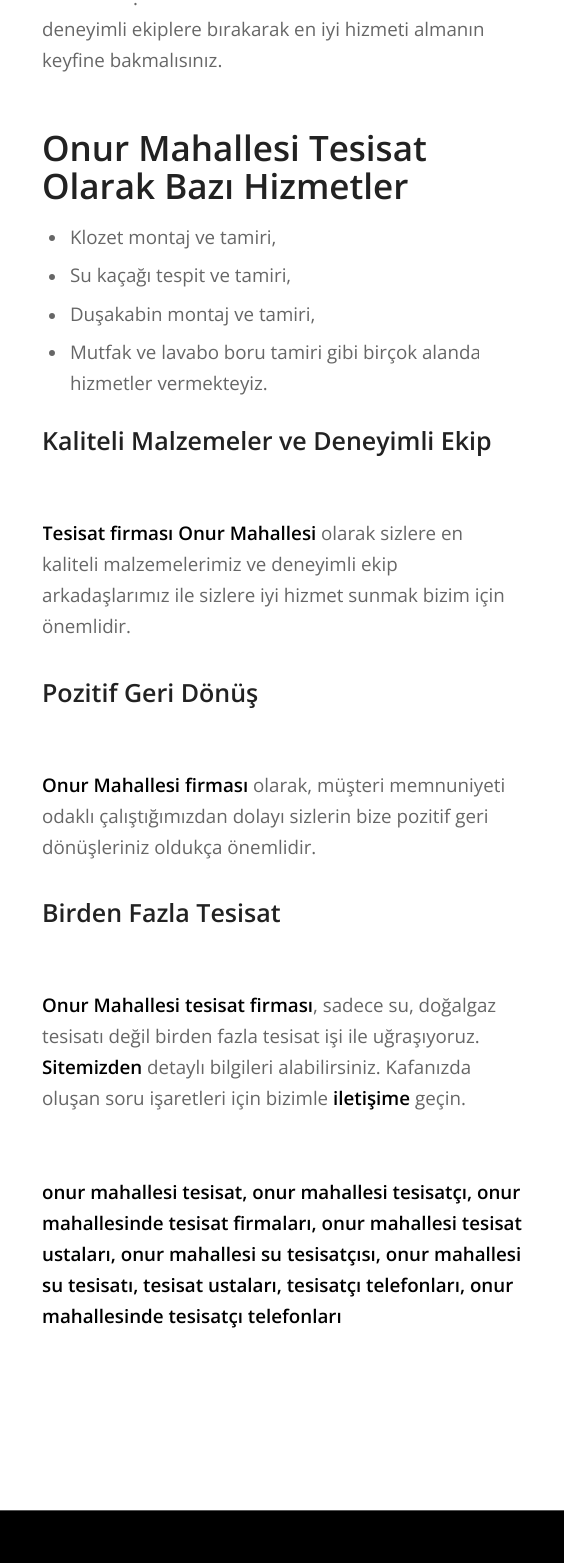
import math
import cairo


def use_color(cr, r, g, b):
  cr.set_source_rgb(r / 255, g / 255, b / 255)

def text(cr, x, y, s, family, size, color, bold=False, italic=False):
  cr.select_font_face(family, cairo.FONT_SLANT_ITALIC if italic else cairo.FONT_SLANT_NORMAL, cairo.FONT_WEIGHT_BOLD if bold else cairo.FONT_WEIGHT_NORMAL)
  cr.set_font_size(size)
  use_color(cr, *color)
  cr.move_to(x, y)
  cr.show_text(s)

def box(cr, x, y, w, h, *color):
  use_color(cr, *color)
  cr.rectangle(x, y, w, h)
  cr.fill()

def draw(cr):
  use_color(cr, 255, 255, 255)
  cr.paint()
  use_color(cr, 102, 102, 102)
  cr.arc(52, 238, 3, 0, 2 * math.pi)
  cr.fill()
  cr.arc(52, 277, 3, 0, 2 * math.pi)
  cr.fill()
  cr.arc(52, 316, 3, 0, 2 * math.pi)
  cr.fill()
  cr.arc(52, 353, 3, 0, 2 * math.pi)
  cr.fill()
  box(cr, 0, 1511, 564, 52, 0, 0, 0)
  box(cr, 0, 1510, 564, 1, 85, 85, 85)
  text(cr, 133, 5, ".", "Open Sans", 18.75, (102, 102, 102))
  text(cr, 42, 36, "deneyimli ekiplere bırakarak en iyi hizmeti almanın", "Open Sans", 18.75, (102, 102, 102))
  text(cr, 42, 67, "keyfine bakmalısınız.", "Open Sans", 18.75, (102, 102, 102))
  text(cr, 42, 161, "Onur Mahallesi Tesisat", "Open Sans SemiBold", 35, (34, 34, 34))
  text(cr, 42, 199, "Olarak Bazı Hizmetler", "Open Sans SemiBold", 35, (34, 34, 34))
  text(cr, 70, 244, "Klozet montaj ve tamiri,", "Open Sans", 18.75, (102, 102, 102))
  text(cr, 70, 282, "Su kaçağı tespit ve tamiri,", "Open Sans", 18.75, (102, 102, 102))
  text(cr, 70, 321, "Duşakabin montaj ve tamiri,", "Open Sans", 18.75, (102, 102, 102))
  text(cr, 70, 359, "Mutfak ve lavabo boru tamiri gibi birçok alanda", "Open Sans", 18.75, (102, 102, 102))
  text(cr, 70, 390, "hizmetler vermekteyiz.", "Open Sans", 18.75, (102, 102, 102))
  text(cr, 42, 450, "Kaliteli Malzemeler ve Deneyimli Ekip", "Open Sans SemiBold", 25, (34, 34, 34))
  cr.save()
  cr.rectangle(43, 0, 480, 1423)
  cr.clip()
  text(cr, 42, 540, "Tesisat firması Onur Mahallesi", "Open Sans SemiBold", 18.75, (0, 0, 0))
  cr.restore()
  text(cr, 321, 540, "olarak sizlere en", "Open Sans", 18.75, (102, 102, 102))
  text(cr, 42, 571, "kaliteli malzemelerimiz ve deneyimli ekip", "Open Sans", 18.75, (102, 102, 102))
  text(cr, 42, 602, "arkadaşlarımız ile sizlere iyi hizmet sunmak bizim için", "Open Sans", 18.75, (102, 102, 102))
  text(cr, 42, 633, "önemlidir.", "Open Sans", 18.75, (102, 102, 102))
  text(cr, 42, 702, "Pozitif Geri Dönüş", "Open Sans SemiBold", 25, (34, 34, 34))
  text(cr, 42, 792, "Onur Mahallesi firması", "Open Sans SemiBold", 18.75, (0, 0, 0))
  text(cr, 253, 792, "olarak, müşteri memnuniyeti", "Open Sans", 18.75, (102, 102, 102))
  text(cr, 42, 823, "odaklı çalıştığımızdan dolayı sizlerin bize pozitif geri", "Open Sans", 18.75, (102, 102, 102))
  text(cr, 42, 854, "dönüşleriniz oldukça önemlidir.", "Open Sans", 18.75, (102, 102, 102))
  text(cr, 42, 922, "Birden Fazla Tesisat", "Open Sans SemiBold", 25, (34, 34, 34))
  text(cr, 42, 1012, "Onur Mahallesi tesisat firması", "Open Sans SemiBold", 18.75, (0, 0, 0))
  text(cr, 313, 1012, ", sadece su, doğalgaz", "Open Sans", 18.75, (102, 102, 102))
  text(cr, 42, 1043, "tesisatı değil birden fazla tesisat işi ile uğraşıyoruz.", "Open Sans", 18.75, (102, 102, 102))
  text(cr, 42, 1074, "Sitemizden", "Open Sans SemiBold", 18.75, (0, 0, 0))
  text(cr, 147, 1074, "detaylı bilgileri alabilirsiniz. Kafanızda", "Open Sans", 18.75, (102, 102, 102))
  text(cr, 42, 1105, "oluşan soru işaretleri için bizimle", "Open Sans", 18.75, (102, 102, 102))
  text(cr, 333, 1105, "iletişime", "Open Sans SemiBold", 18.75, (0, 0, 0))
  text(cr, 415, 1105, "geçin.", "Open Sans", 18.75, (102, 102, 102))
  text(cr, 42, 1199, "onur mahallesi tesisat, onur mahallesi tesisatçı, onur", "Open Sans SemiBold", 18.75, (0, 0, 0))
  text(cr, 42, 1230, "mahallesinde tesisat firmaları, onur mahallesi tesisat", "Open Sans SemiBold", 18.75, (0, 0, 0))
  text(cr, 42, 1261, "ustaları, onur mahallesi su tesisatçısı, onur mahallesi", "Open Sans SemiBold", 18.75, (0, 0, 0))
  text(cr, 42, 1292, "su tesisatı, tesisat ustaları, tesisatçı telefonları, onur", "Open Sans SemiBold", 18.75, (0, 0, 0))
  text(cr, 42, 1323, "mahallesinde tesisatçı telefonları", "Open Sans SemiBold", 18.75, (0, 0, 0))


surface = cairo.ImageSurface(cairo.FORMAT_RGB24, 564, 1563)
cr = cairo.Context(surface)
options = cairo.FontOptions()
options.set_hint_metrics(cairo.HINT_METRICS_OFF)
options.set_hint_style(cairo.HINT_STYLE_NONE)
cr.set_font_options(options)
cr.set_miter_limit(4)
draw(cr)
surface.write_to_png("out.png")
